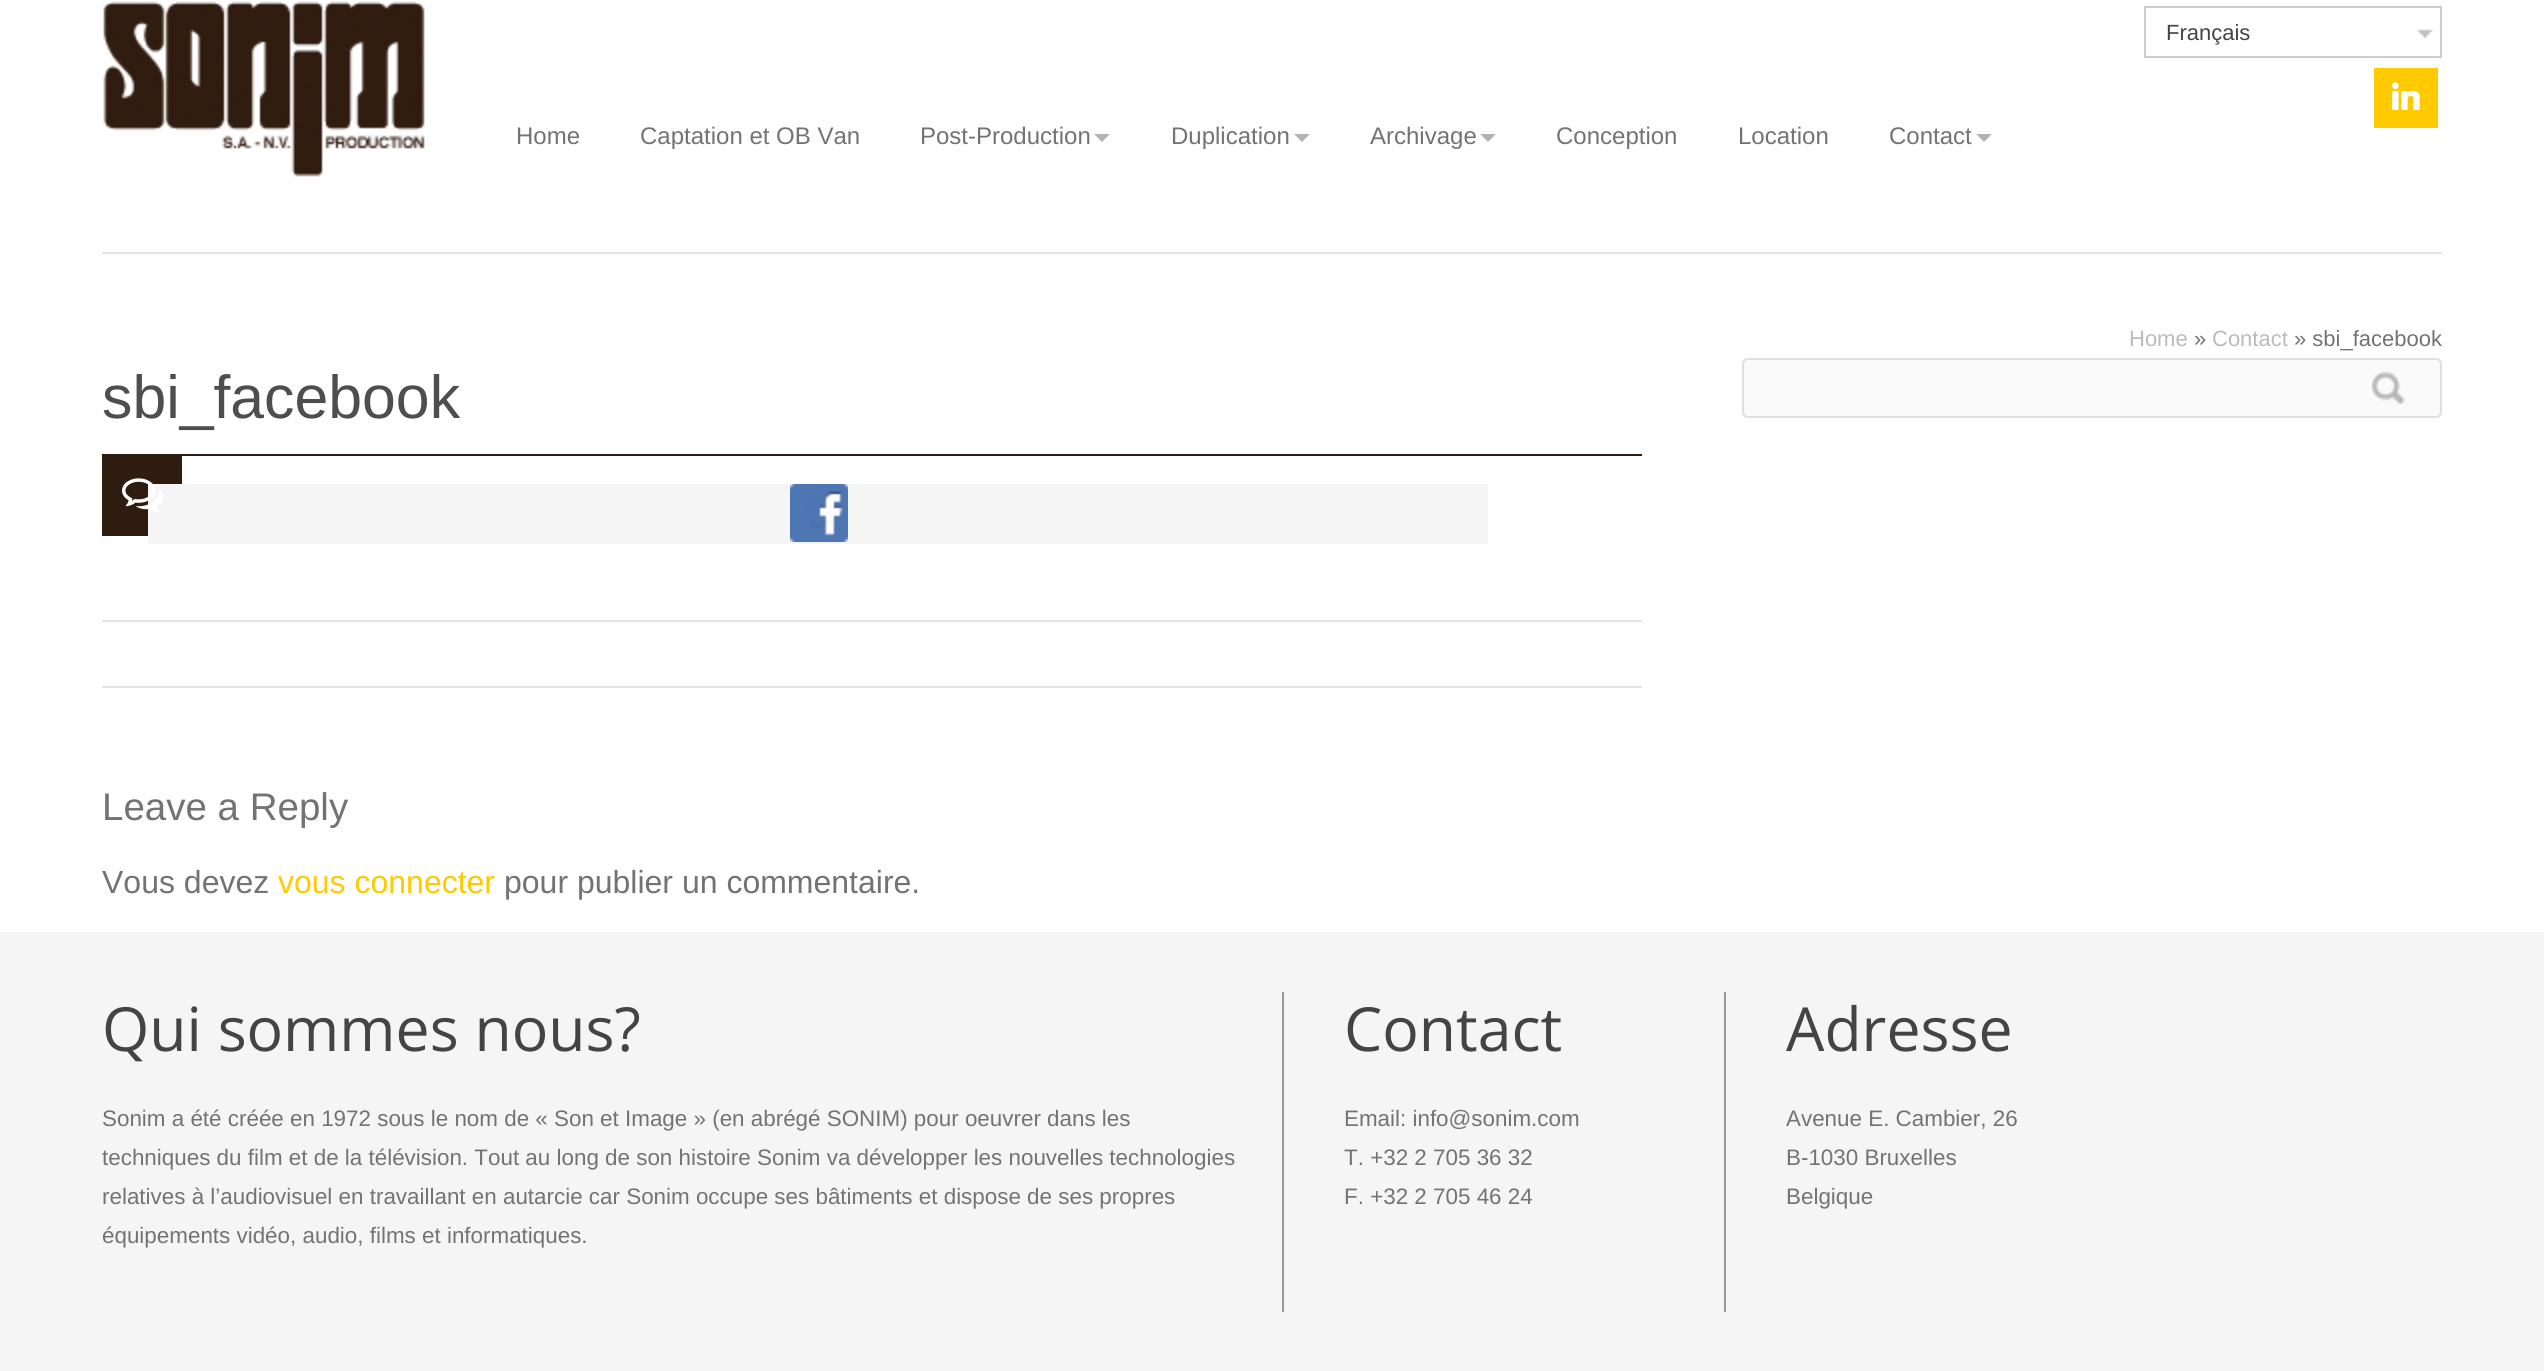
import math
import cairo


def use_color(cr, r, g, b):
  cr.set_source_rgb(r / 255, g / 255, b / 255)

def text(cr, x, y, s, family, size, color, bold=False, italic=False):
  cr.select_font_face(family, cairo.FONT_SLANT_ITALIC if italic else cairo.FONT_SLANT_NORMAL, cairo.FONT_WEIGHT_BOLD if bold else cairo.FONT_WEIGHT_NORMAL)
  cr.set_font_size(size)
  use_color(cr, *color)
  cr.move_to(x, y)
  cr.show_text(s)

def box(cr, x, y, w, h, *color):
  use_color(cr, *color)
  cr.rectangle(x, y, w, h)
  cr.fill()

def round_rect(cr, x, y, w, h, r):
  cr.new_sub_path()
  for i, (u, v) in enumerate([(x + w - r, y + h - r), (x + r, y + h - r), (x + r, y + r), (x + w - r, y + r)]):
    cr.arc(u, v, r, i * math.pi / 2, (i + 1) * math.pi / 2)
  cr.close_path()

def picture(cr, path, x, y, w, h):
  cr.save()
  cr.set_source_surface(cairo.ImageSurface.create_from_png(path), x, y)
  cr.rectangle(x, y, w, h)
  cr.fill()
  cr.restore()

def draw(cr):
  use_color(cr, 255, 255, 255)
  cr.paint()
  picture(cr, "img_01.png", 103, 1, 322, 176)
  picture(cr, "img_02.png", 2417, 29, 16, 10)
  cr.rectangle(2145, 7, 296, 50)
  use_color(cr, 205, 205, 205)
  cr.stroke()
  box(cr, 2374, 68, 64, 60, 255, 202, 0)
  picture(cr, "img_03.png", 2392, 82, 28, 28)
  use_color(cr, 179, 179, 179)
  cr.new_path()
  cr.move_to(1094, 134)
  cr.line_to(1110, 134)
  cr.line_to(1102, 142)
  cr.close_path()
  cr.fill()
  cr.new_path()
  cr.move_to(1294, 134)
  cr.line_to(1310, 134)
  cr.line_to(1302, 142)
  cr.close_path()
  cr.fill()
  cr.new_path()
  cr.move_to(1480, 134)
  cr.line_to(1496, 134)
  cr.line_to(1488, 142)
  cr.close_path()
  cr.fill()
  cr.new_path()
  cr.move_to(1976, 134)
  cr.line_to(1992, 134)
  cr.line_to(1984, 142)
  cr.close_path()
  cr.fill()
  box(cr, 102, 252, 2340, 2, 227, 227, 227)
  box(cr, 102, 454, 1540, 2, 47, 28, 17)
  box(cr, 102, 456, 80, 80, 47, 28, 17)
  box(cr, 148, 484, 1340, 60, 245, 245, 245)
  picture(cr, "img_04.png", 122, 478, 41, 35)
  picture(cr, "img_05.png", 804, 499, 29, 30)
  picture(cr, "img_06.png", 790, 484, 58, 58)
  box(cr, 102, 620, 1540, 2, 227, 227, 227)
  box(cr, 102, 686, 1540, 2, 227, 227, 227)
  use_color(cr, 250, 250, 250)
  round_rect(cr, 1743, 359, 698, 58, 5)
  cr.fill_preserve()
  use_color(cr, 223, 223, 223)
  cr.stroke()
  picture(cr, "img_07.png", 2372, 372, 33, 32)
  box(cr, 0, 932, 2544, 439, 245, 245, 245)
  box(cr, 1282, 992, 2, 320, 154, 154, 154)
  box(cr, 1724, 992, 2, 320, 154, 154, 154)
  text(cr, 2166, 40, "Français", "Liberation Sans", 22, (68, 68, 68))
  text(cr, 516, 144, "Home", "Liberation Sans", 24, (115, 115, 115))
  text(cr, 640, 144, "Captation et OB Van", "Liberation Sans", 24, (115, 115, 115))
  text(cr, 920, 144, "Post-Production", "Liberation Sans", 24, (115, 115, 115))
  text(cr, 1171, 144, "Duplication", "Liberation Sans", 24, (115, 115, 115))
  text(cr, 1370, 144, "Archivage", "Liberation Sans", 24, (115, 115, 115))
  text(cr, 1556, 144, "Conception", "Liberation Sans", 24, (115, 115, 115))
  text(cr, 1738, 144, "Location", "Liberation Sans", 24, (115, 115, 115))
  text(cr, 1889, 144, "Contact", "Liberation Sans", 24, (115, 115, 115))
  text(cr, 2129, 346, "Home", "Liberation Sans", 22, (188, 187, 187))
  text(cr, 2194, 346, "»", "Liberation Sans", 22, (115, 115, 115))
  text(cr, 2212, 346, "Contact", "Liberation Sans", 22, (188, 187, 187))
  text(cr, 2294, 346, "» sbi_facebook", "Liberation Sans", 22, (115, 115, 115))
  text(cr, 102, 418, "sbi_facebook", "Liberation Sans", 60.75, (78, 78, 78))
  text(cr, 102, 820, "Leave a Reply", "Liberation Sans", 38.5, (115, 115, 115))
  text(cr, 102, 893, "Vous devez", "Liberation Sans", 32, (115, 115, 115))
  text(cr, 278, 893, "vous connecter", "Liberation Sans", 32, (255, 202, 0))
  text(cr, 504, 893, "pour publier un commentaire.", "Liberation Sans", 32, (115, 115, 115))
  text(cr, 102, 1051, "Qui sommes nous?", "Open Sans", 60.75, (68, 68, 68))
  text(cr, 102, 1126, "Sonim a été créée en 1972 sous le nom de « Son et Image » (en abrégé SONIM) pour oeuvrer dans les", "Liberation Sans", 22.4, (115, 115, 115))
  text(cr, 102, 1165, "techniques du film et de la télévision. Tout au long de son histoire Sonim va développer les nouvelles technologies", "Liberation Sans", 22.4, (115, 115, 115))
  text(cr, 102, 1204, "relatives à l’audiovisuel en travaillant en autarcie car Sonim occupe ses bâtiments et dispose de ses propres", "Liberation Sans", 22.4, (115, 115, 115))
  text(cr, 102, 1243, "équipements vidéo, audio, films et informatiques.", "Liberation Sans", 22.4, (115, 115, 115))
  text(cr, 1344, 1051, "Contact", "Open Sans", 60.75, (68, 68, 68))
  text(cr, 1344, 1126, "Email: info@sonim.com", "Liberation Sans", 22.4, (115, 115, 115))
  text(cr, 1344, 1165, "T. +32 2 705 36 32", "Liberation Sans", 22.4, (115, 115, 115))
  text(cr, 1344, 1204, "F. +32 2 705 46 24", "Liberation Sans", 22.4, (115, 115, 115))
  text(cr, 1786, 1051, "Adresse", "Open Sans", 60.75, (68, 68, 68))
  text(cr, 1786, 1126, "Avenue E. Cambier, 26", "Liberation Sans", 22.4, (115, 115, 115))
  text(cr, 1786, 1165, "B-1030 Bruxelles", "Liberation Sans", 22.4, (115, 115, 115))
  text(cr, 1786, 1204, "Belgique", "Liberation Sans", 22.4, (115, 115, 115))


surface = cairo.ImageSurface(cairo.FORMAT_RGB24, 2544, 1371)
cr = cairo.Context(surface)
options = cairo.FontOptions()
options.set_hint_metrics(cairo.HINT_METRICS_OFF)
options.set_hint_style(cairo.HINT_STYLE_NONE)
cr.set_font_options(options)
cr.set_miter_limit(4)
draw(cr)
surface.write_to_png("out.png")
